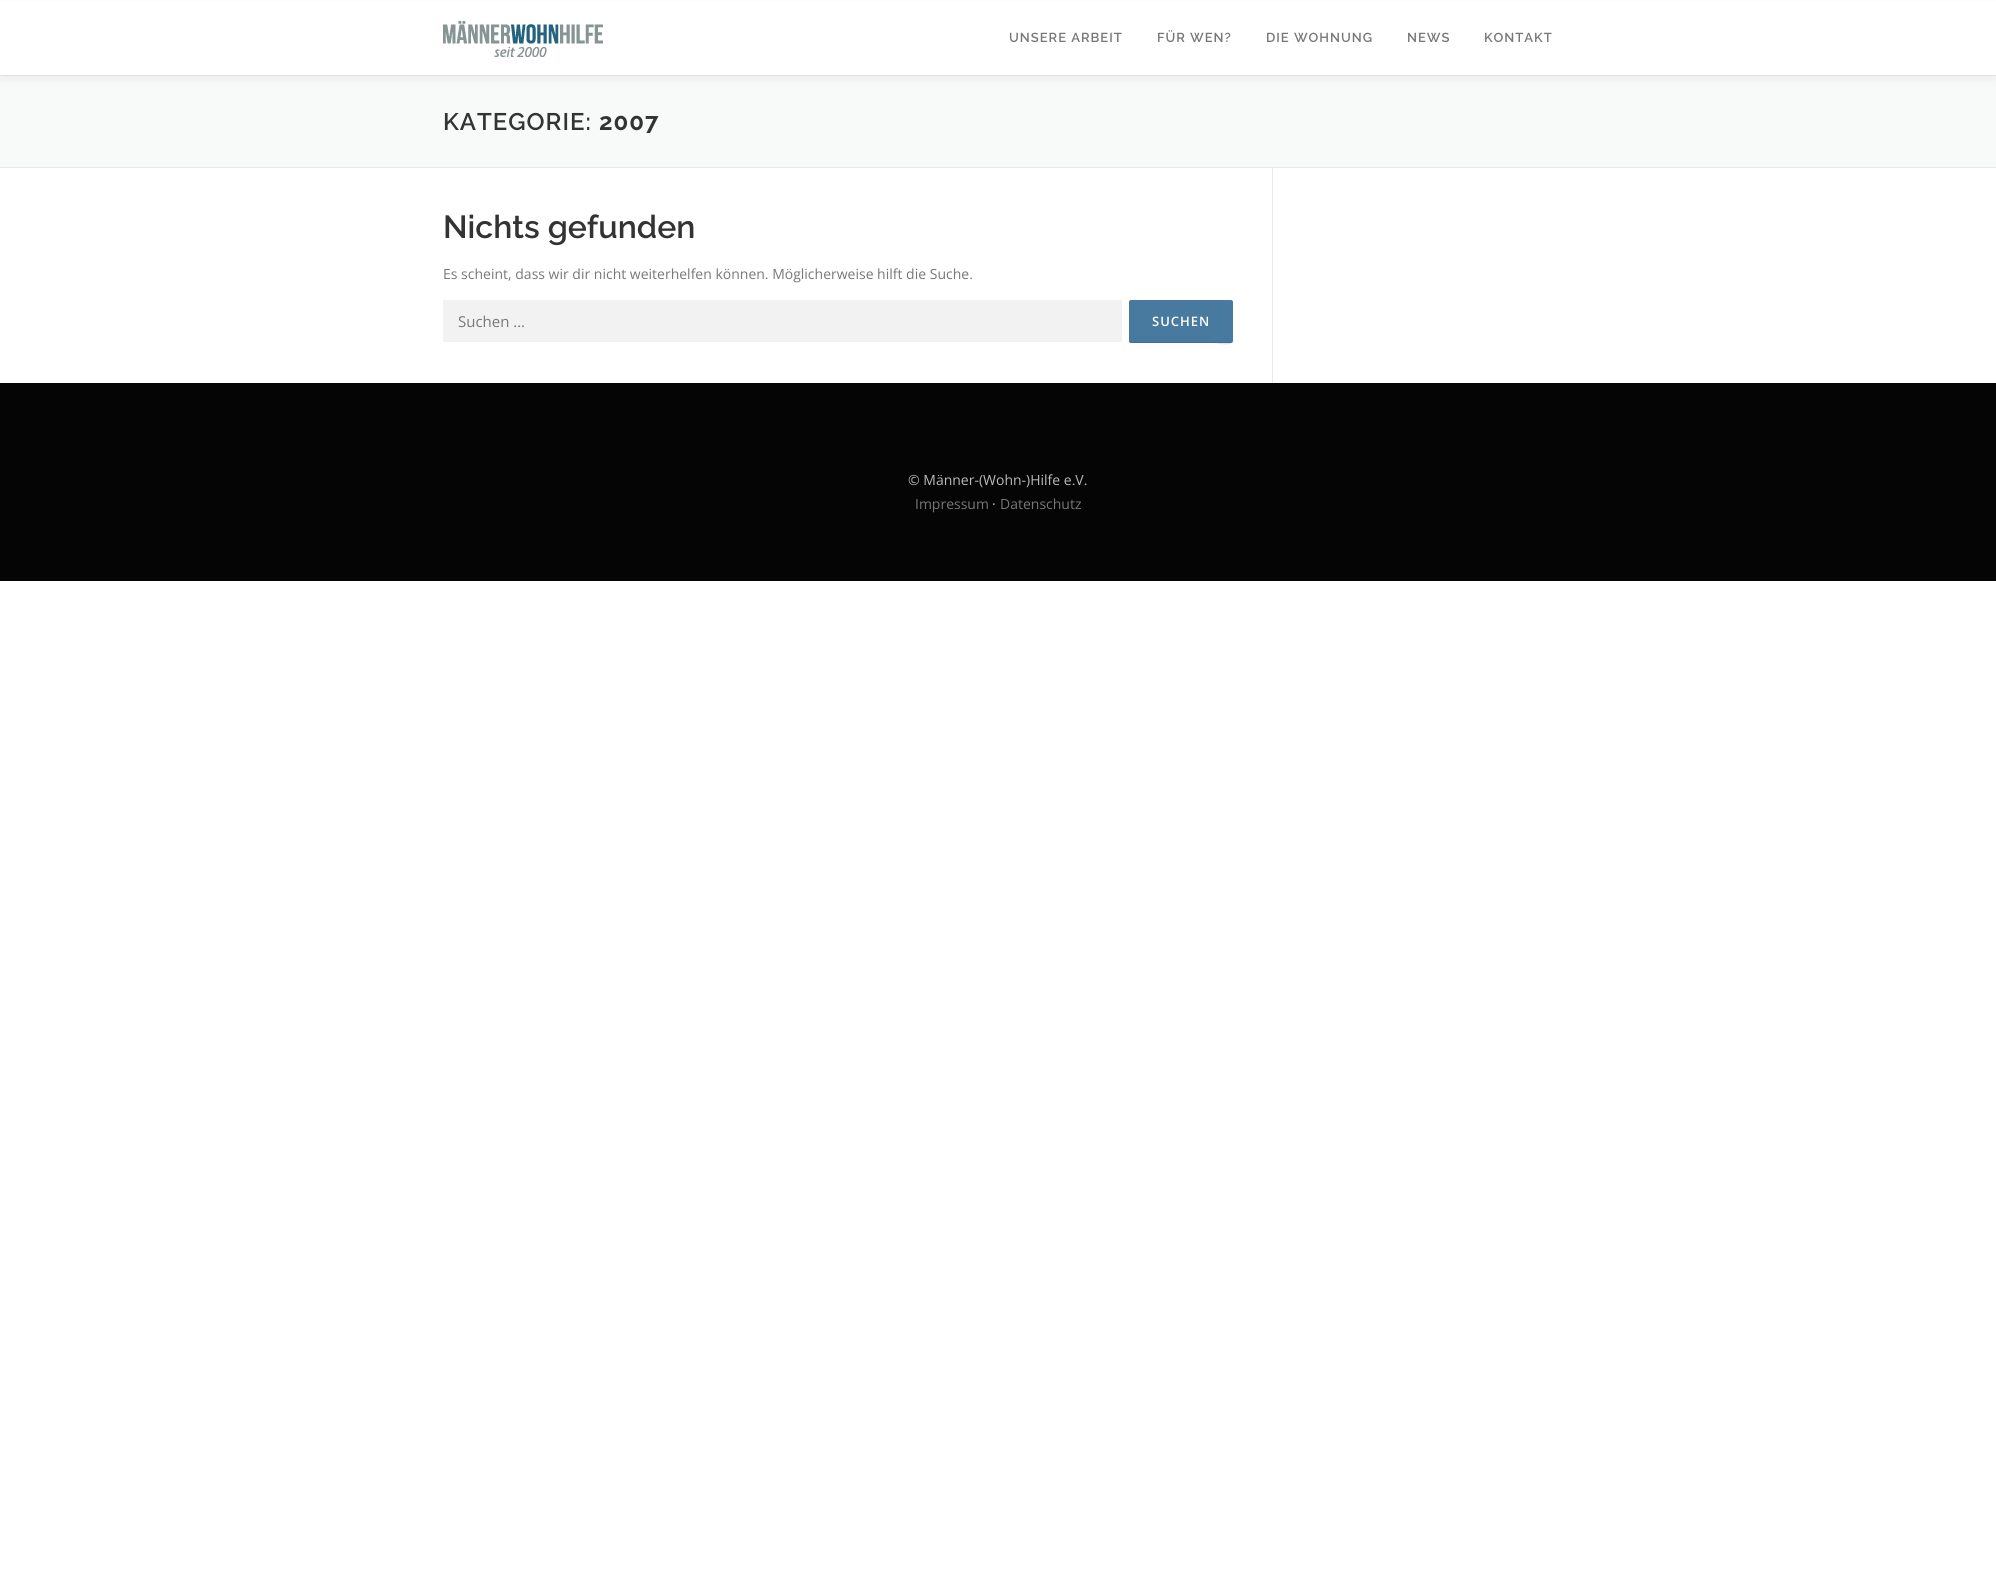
import math
import cairo


def use_color(cr, r, g, b):
  cr.set_source_rgb(r / 255, g / 255, b / 255)

def text(cr, x, y, s, family, size, color, bold=False, italic=False):
  cr.select_font_face(family, cairo.FONT_SLANT_ITALIC if italic else cairo.FONT_SLANT_NORMAL, cairo.FONT_WEIGHT_BOLD if bold else cairo.FONT_WEIGHT_NORMAL)
  cr.set_font_size(size)
  use_color(cr, *color)
  cr.move_to(x, y)
  cr.show_text(s)

def spaced_text(cr, x, y, s, letter, word):
  cr.move_to(x, y)
  for ch in s:
    cr.show_text(ch)
    cr.rel_move_to(letter + word * (ch == ' '), 0)

def box(cr, x, y, w, h, *color):
  use_color(cr, *color)
  cr.rectangle(x, y, w, h)
  cr.fill()

def round_rect(cr, x, y, w, h, r):
  cr.new_sub_path()
  for i, (u, v) in enumerate([(x + w - r, y + h - r), (x + r, y + h - r), (x + r, y + r), (x + w - r, y + r)]):
    cr.arc(u, v, r, i * math.pi / 2, (i + 1) * math.pi / 2)
  cr.close_path()

def shadow(cr, x, y, w, h, r, blur, alpha):
  cr.push_group_with_content(cairo.CONTENT_ALPHA)
  cr.set_operator(cairo.OPERATOR_SOURCE)
  for i in range(15, -16, -2):
    e = blur * i / 6
    if min(w, h) + 2 * e > 0:
      cr.set_source_rgba(0, 0, 0, alpha * math.erfc((i - 1) / 8.5) / 2)
      round_rect(cr, x - e, y - e, w + 2 * e, h + 2 * e, max(0, min(r + e + blur * .6, min(w, h) / 2 + e)))
      cr.fill()
  cr.mask(cr.pop_group())

def picture(cr, path, x, y, w, h):
  cr.save()
  cr.set_source_surface(cairo.ImageSurface.create_from_png(path), x, y)
  cr.rectangle(x, y, w, h)
  cr.fill()
  cr.restore()

def draw(cr):
  use_color(cr, 255, 255, 255)
  cr.paint()
  box(cr, 0, 76, 1996, 91, 248, 249, 249)
  box(cr, 0, 75, 1996, 1, 233, 233, 233)
  use_color(cr, 50, 50, 50)
  shadow(cr, 0, 5, 1996, 75, 0, 5, 0.06)
  box(cr, 0, 1, 1996, 74, 255, 255, 255)
  picture(cr, "img_01.png", 443, 21, 160, 36)
  box(cr, 0, 167, 1996, 1, 233, 233, 233)
  box(cr, 1272, 168, 1, 215, 233, 233, 233)
  box(cr, 443, 300, 679, 42, 242, 242, 242)
  use_color(cr, 72, 122, 159)
  round_rect(cr, 1129, 300, 104, 43, 2)
  cr.fill()
  cr.set_source_rgba(0, 0, 0, 0.1)
  cr.new_path()
  cr.move_to(1129, 340)
  cr.curve_to(1129, 341, 1129, 343, 1131, 343)
  cr.line_to(1214, 343)
  cr.curve_to(1215, 343, 1233, 348, 1233, 340)
  cr.curve_to(1233, 341, 1232, 342, 1231, 342)
  cr.line_to(1131, 342)
  cr.curve_to(1130, 342, 1129, 341, 1129, 340)
  cr.close_path()
  cr.fill()
  box(cr, 0, 383, 1996, 198, 5, 5, 5)
  cr.select_font_face("Raleway Thin")
  cr.set_font_size(13)
  use_color(cr, 119, 119, 119)
  spaced_text(cr, 1009, 42, "UNSERE ARBEIT", 1, 0)
  spaced_text(cr, 1157, 42, "FÜR WEN?", 1, 0)
  spaced_text(cr, 1266, 42, "DIE WOHNUNG", 1, 0)
  spaced_text(cr, 1407, 42, "NEWS", 1, 0)
  spaced_text(cr, 1484, 42, "KONTAKT", 1, 0)
  cr.set_font_size(24)
  use_color(cr, 51, 51, 51)
  spaced_text(cr, 443, 130, "KATEGORIE:", 1, 0)
  cr.select_font_face("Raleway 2 Thin")
  spaced_text(cr, 599, 130, "2007", 1, 0)
  text(cr, 443, 238, "Nichts gefunden", "Raleway Thin", 32, (51, 51, 51))
  text(cr, 443, 279, "Es scheint, dass wir dir nicht weiterhelfen können. Möglicherweise hilft die Suche.", "Open Sans", 14, (119, 119, 119))
  text(cr, 458, 327, "Suchen …", "Open Sans", 15, (119, 119, 119))
  cr.select_font_face("Open Sans SemiBold")
  cr.set_font_size(13)
  use_color(cr, 255, 255, 255)
  spaced_text(cr, 1152, 326, "SUCHEN", 1, 0)
  text(cr, 908, 485, "© Männer-(Wohn-)Hilfe e.V.", "Open Sans", 14, (187, 187, 187))
  text(cr, 915, 509, "Impressum", "Open Sans", 14, (119, 119, 119))
  text(cr, 992, 509, "·", "Open Sans", 14, (187, 187, 187))
  text(cr, 1000, 509, "Datenschutz", "Open Sans", 14, (119, 119, 119))


surface = cairo.ImageSurface(cairo.FORMAT_RGB24, 1996, 1588)
cr = cairo.Context(surface)
options = cairo.FontOptions()
options.set_hint_metrics(cairo.HINT_METRICS_OFF)
options.set_hint_style(cairo.HINT_STYLE_NONE)
cr.set_font_options(options)
cr.set_miter_limit(4)
draw(cr)
surface.write_to_png("out.png")
